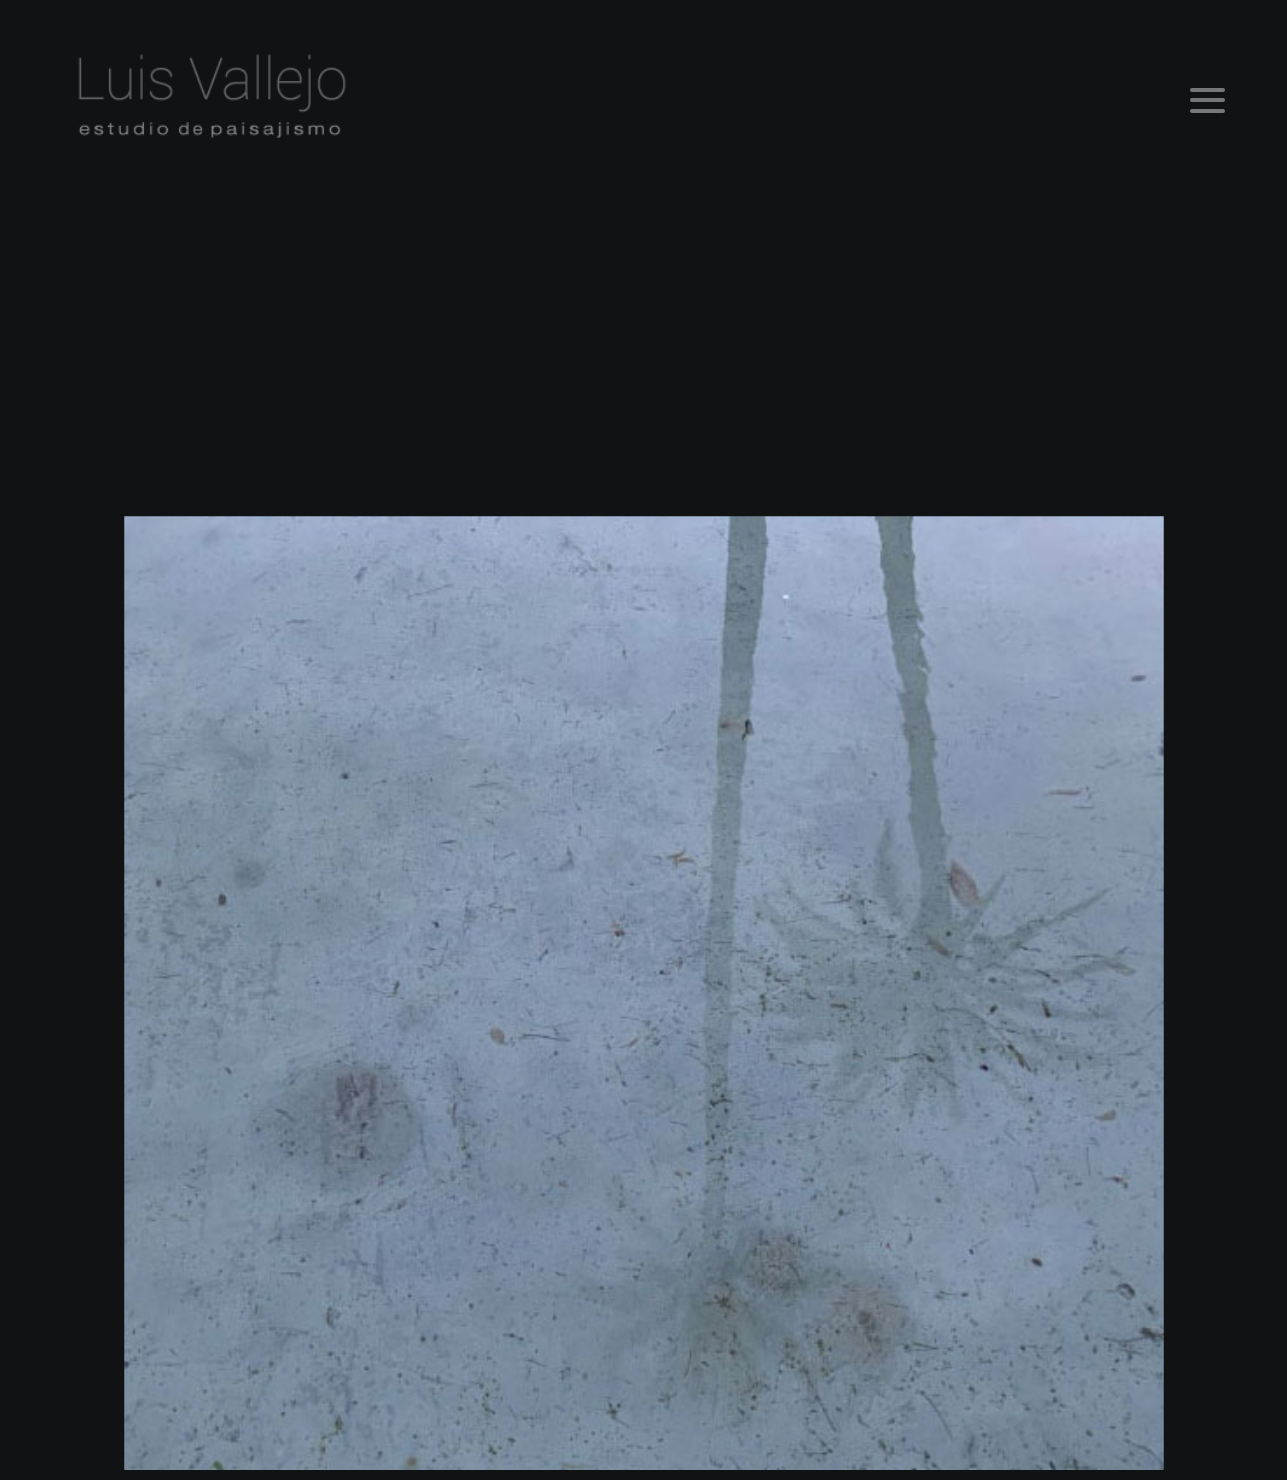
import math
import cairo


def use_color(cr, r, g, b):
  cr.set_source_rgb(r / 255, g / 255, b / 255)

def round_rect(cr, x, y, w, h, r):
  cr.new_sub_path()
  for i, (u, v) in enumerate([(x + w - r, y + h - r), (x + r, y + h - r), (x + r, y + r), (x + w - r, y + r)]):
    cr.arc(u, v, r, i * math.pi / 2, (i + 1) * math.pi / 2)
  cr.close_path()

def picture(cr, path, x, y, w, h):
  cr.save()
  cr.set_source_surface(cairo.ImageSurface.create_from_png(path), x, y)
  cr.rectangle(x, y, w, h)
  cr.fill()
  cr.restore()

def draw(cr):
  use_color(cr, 16, 18, 19)
  cr.paint()
  picture(cr, "img_01.png", 78, 54, 268, 84)
  use_color(cr, 119, 119, 119)
  round_rect(cr, 1190, 98, 35, 4, 2)
  cr.fill()
  round_rect(cr, 1190, 88, 35, 4, 2)
  cr.fill()
  round_rect(cr, 1190, 109, 35, 4, 2)
  cr.fill()
  picture(cr, "img_02.png", 124, 516, 1040, 954)


surface = cairo.ImageSurface(cairo.FORMAT_RGB24, 1287, 1480)
cr = cairo.Context(surface)
options = cairo.FontOptions()
options.set_hint_metrics(cairo.HINT_METRICS_OFF)
options.set_hint_style(cairo.HINT_STYLE_NONE)
cr.set_font_options(options)
cr.set_miter_limit(4)
draw(cr)
surface.write_to_png("out.png")
